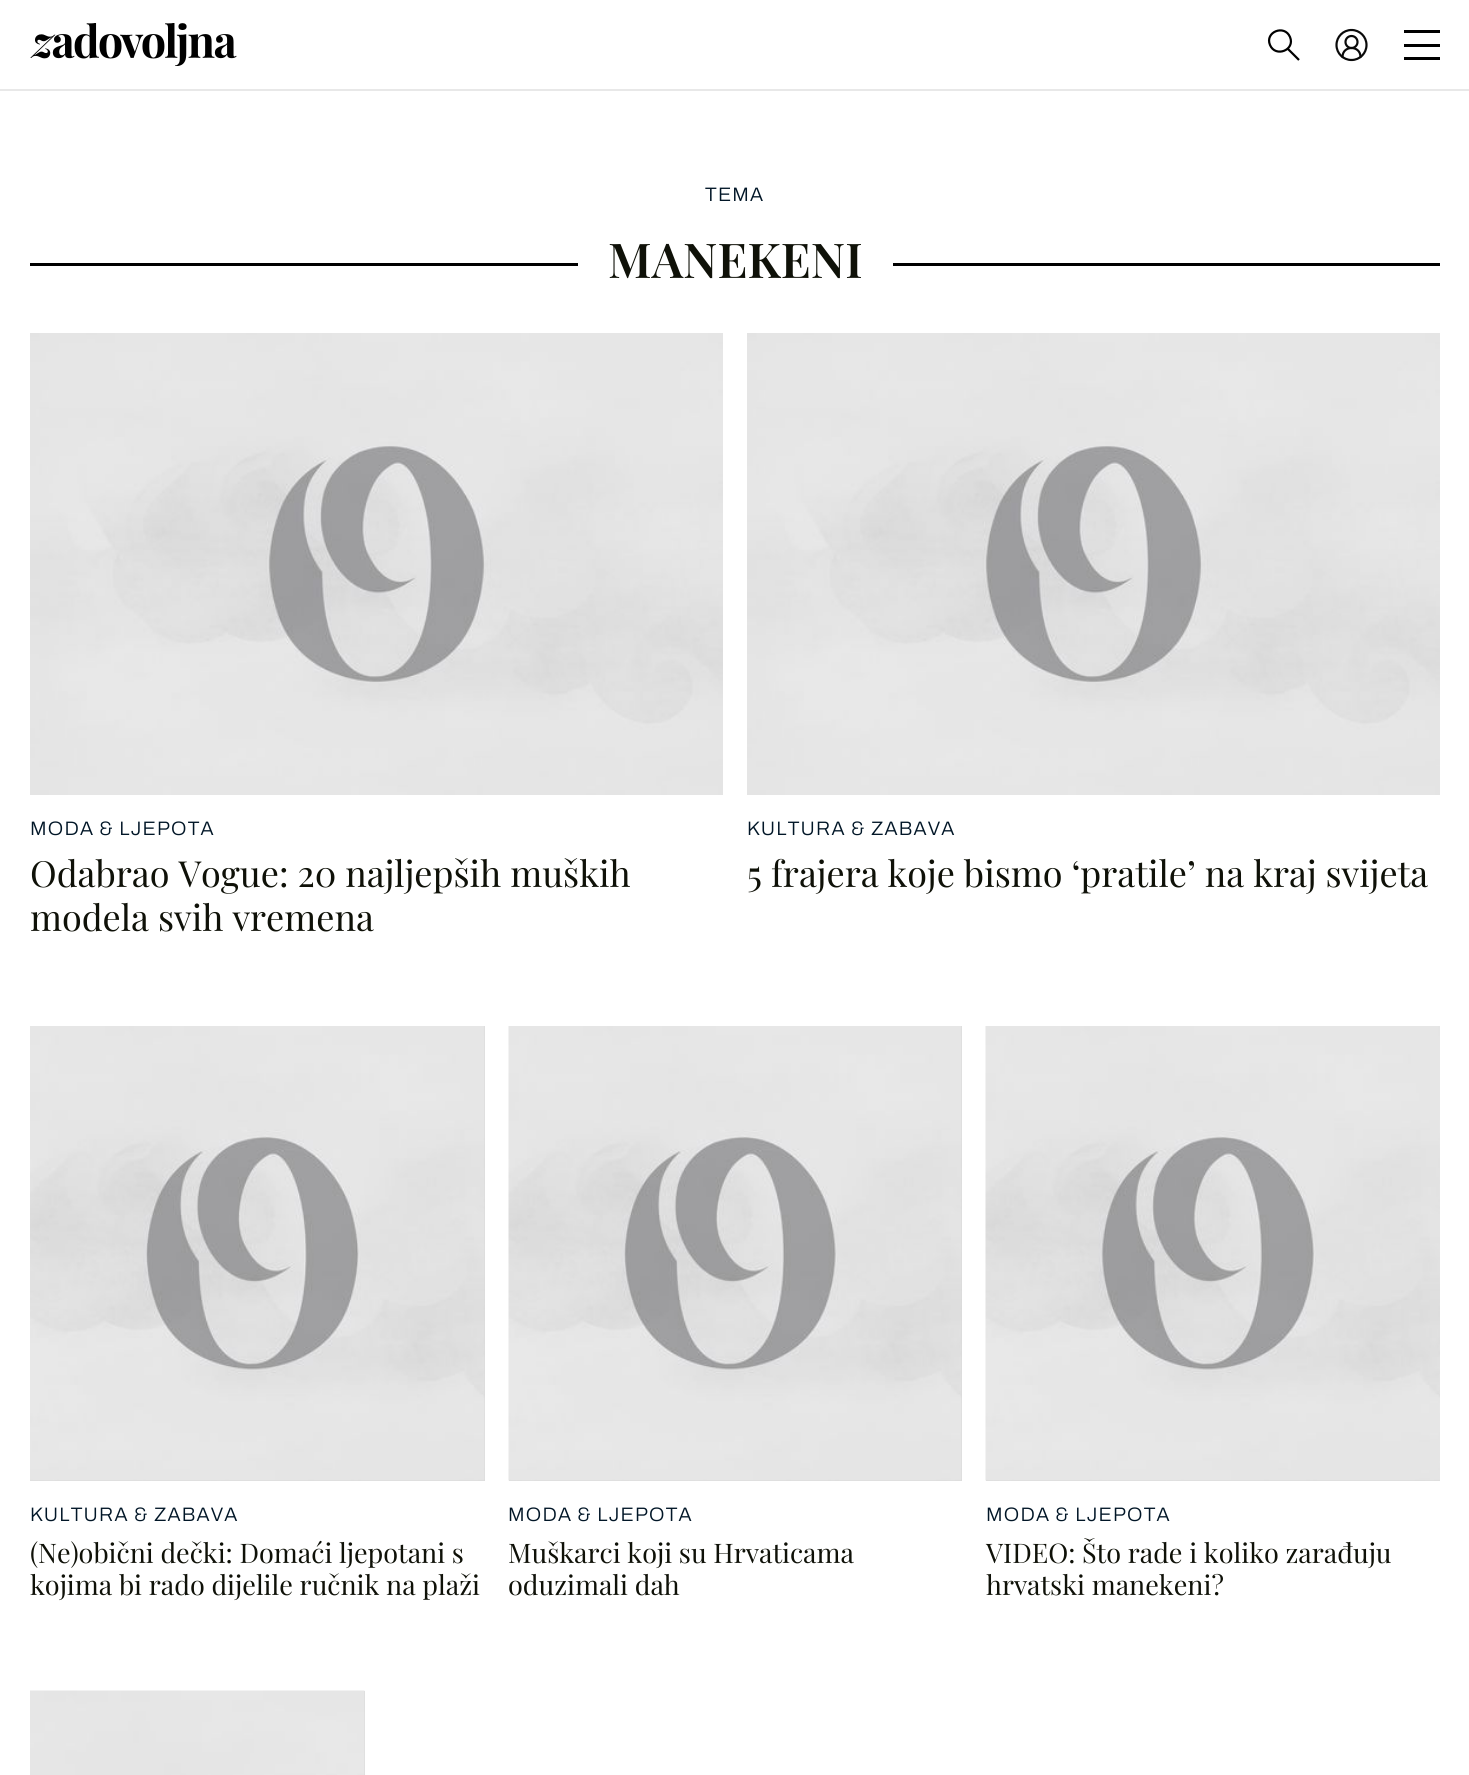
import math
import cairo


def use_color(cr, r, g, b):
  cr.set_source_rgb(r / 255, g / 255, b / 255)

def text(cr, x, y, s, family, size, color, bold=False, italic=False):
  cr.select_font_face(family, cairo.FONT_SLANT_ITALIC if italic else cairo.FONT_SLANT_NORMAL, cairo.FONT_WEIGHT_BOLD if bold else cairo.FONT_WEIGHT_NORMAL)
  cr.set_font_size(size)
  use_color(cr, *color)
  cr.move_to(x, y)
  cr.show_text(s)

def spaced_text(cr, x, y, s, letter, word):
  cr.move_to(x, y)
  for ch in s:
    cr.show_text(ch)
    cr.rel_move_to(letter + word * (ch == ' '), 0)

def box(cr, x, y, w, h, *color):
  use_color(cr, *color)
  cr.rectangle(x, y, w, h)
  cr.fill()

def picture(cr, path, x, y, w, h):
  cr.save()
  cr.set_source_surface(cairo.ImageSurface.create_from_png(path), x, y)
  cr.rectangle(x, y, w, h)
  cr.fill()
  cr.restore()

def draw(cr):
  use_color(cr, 255, 255, 255)
  cr.paint()
  box(cr, 0, 89, 1469, 2, 232, 232, 232)
  picture(cr, "img_01.png", 30, 23, 207, 43)
  cr.new_path()
  cr.move_to(1270, 45)
  cr.curve_to(1275.5, 58, 1295.5, 50, 1290, 37)
  cr.curve_to(1284.5, 24, 1264.5, 32, 1270, 45)
  cr.close_path()
  cr.move_to(1299, 60)
  cr.line_to(1287.5, 48.5)
  use_color(cr, 0, 0, 0)
  cr.set_line_width(2.2)
  cr.stroke()
  cr.new_path()
  cr.move_to(1360.5, 57)
  cr.curve_to(1360.5, 45, 1342.5, 45, 1342.5, 57)
  use_color(cr, 10, 10, 10)
  cr.set_line_cap(cairo.LINE_CAP_ROUND)
  cr.set_line_join(cairo.LINE_JOIN_ROUND)
  cr.stroke()
  cr.arc(1351.5, 42, 6, 0, 2 * math.pi)
  cr.set_line_cap(cairo.LINE_CAP_BUTT)
  cr.set_line_join(cairo.LINE_JOIN_MITER)
  cr.stroke()
  cr.arc(1351.5, 45, 15, 0, 2 * math.pi)
  cr.stroke()
  box(cr, 1404, 44, 36, 3, 0, 0, 0)
  box(cr, 1404, 30, 36, 3, 0, 0, 0)
  box(cr, 1404, 57, 36, 3, 0, 0, 0)
  box(cr, 30, 263, 1410, 3, 0, 0, 0)
  box(cr, 578, 263, 315, 3, 255, 255, 255)
  picture(cr, "img_02.png", 30, 333, 693, 462)
  picture(cr, "img_03.png", 747, 333, 693, 462)
  box(cr, 30, 1026, 455, 455, 217, 217, 217)
  picture(cr, "img_04.png", 30, 1026, 455, 455)
  box(cr, 509, 1026, 453, 455, 217, 217, 217)
  picture(cr, "img_05.png", 508, 1026, 454, 455)
  box(cr, 986, 1480, 454, 1, 217, 217, 217)
  picture(cr, "img_06.png", 985, 1026, 455, 455)
  box(cr, 364, 1691, 1, 84, 217, 217, 217)
  picture(cr, "img_07.png", 30, 1690, 335, 85)
  cr.select_font_face("Archivo Light")
  cr.set_font_size(19.5)
  use_color(cr, 1, 22, 39)
  spaced_text(cr, 705, 201, "TEMA", 1.2, 0)
  text(cr, 608, 278, "MANEKENI", "Playfair Display SemiBold", 48, (15, 17, 8))
  cr.select_font_face("Archivo Light")
  cr.set_font_size(19.5)
  use_color(cr, 1, 22, 39)
  spaced_text(cr, 30, 835, "MODA & LJEPOTA", 1.2, 0)
  text(cr, 30, 887, "Odabrao Vogue: 20 najljepših muških", "Playfair Display", 36, (15, 17, 8))
  text(cr, 30, 931, "modela svih vremena", "Playfair Display", 36, (15, 17, 8))
  cr.select_font_face("Archivo Light")
  cr.set_font_size(19.5)
  use_color(cr, 1, 22, 39)
  spaced_text(cr, 747, 835, "KULTURA & ZABAVA", 1.2, 0)
  text(cr, 747, 887, "5 frajera koje bismo ‘pratile’ na kraj svijeta", "Playfair Display", 36, (15, 17, 8))
  cr.select_font_face("Archivo Light")
  cr.set_font_size(19.5)
  use_color(cr, 1, 22, 39)
  spaced_text(cr, 30, 1521, "KULTURA & ZABAVA", 1.2, 0)
  text(cr, 30, 1563, "(Ne)obični dečki: Domaći ljepotani s", "Playfair Display", 27, (15, 17, 8))
  text(cr, 30, 1595, "kojima bi rado dijelile ručnik na plaži", "Playfair Display", 27, (15, 17, 8))
  cr.select_font_face("Archivo Light")
  cr.set_font_size(19.5)
  use_color(cr, 1, 22, 39)
  spaced_text(cr, 508, 1521, "MODA & LJEPOTA", 1.2, 0)
  text(cr, 508, 1563, "Muškarci koji su Hrvaticama", "Playfair Display", 27, (15, 17, 8))
  text(cr, 508, 1595, "oduzimali dah", "Playfair Display", 27, (15, 17, 8))
  cr.select_font_face("Archivo Light")
  cr.set_font_size(19.5)
  use_color(cr, 1, 22, 39)
  spaced_text(cr, 986, 1521, "MODA & LJEPOTA", 1.2, 0)
  text(cr, 986, 1563, "VIDEO: Što rade i koliko zarađuju", "Playfair Display", 27, (15, 17, 8))
  text(cr, 986, 1595, "hrvatski manekeni?", "Playfair Display", 27, (15, 17, 8))


surface = cairo.ImageSurface(cairo.FORMAT_RGB24, 1469, 1775)
cr = cairo.Context(surface)
options = cairo.FontOptions()
options.set_hint_metrics(cairo.HINT_METRICS_OFF)
options.set_hint_style(cairo.HINT_STYLE_NONE)
cr.set_font_options(options)
cr.set_miter_limit(4)
draw(cr)
surface.write_to_png("out.png")
